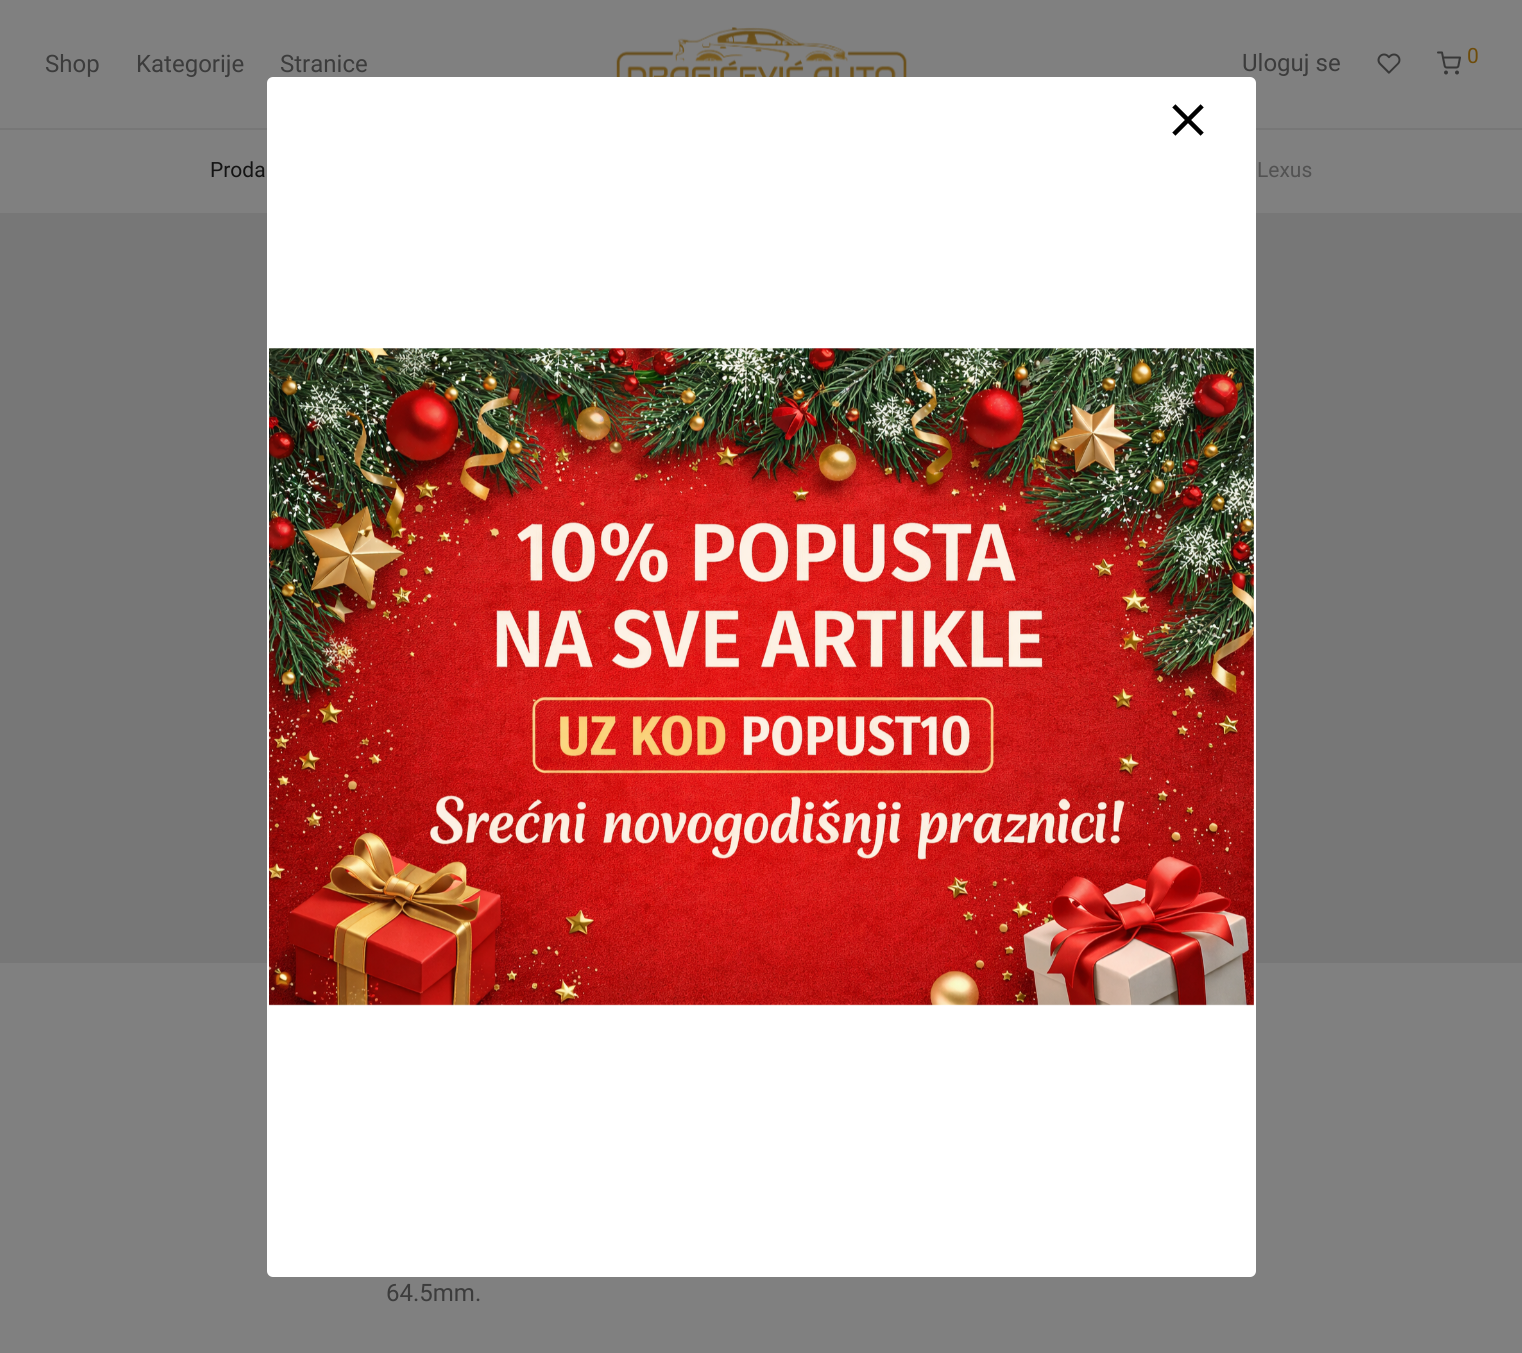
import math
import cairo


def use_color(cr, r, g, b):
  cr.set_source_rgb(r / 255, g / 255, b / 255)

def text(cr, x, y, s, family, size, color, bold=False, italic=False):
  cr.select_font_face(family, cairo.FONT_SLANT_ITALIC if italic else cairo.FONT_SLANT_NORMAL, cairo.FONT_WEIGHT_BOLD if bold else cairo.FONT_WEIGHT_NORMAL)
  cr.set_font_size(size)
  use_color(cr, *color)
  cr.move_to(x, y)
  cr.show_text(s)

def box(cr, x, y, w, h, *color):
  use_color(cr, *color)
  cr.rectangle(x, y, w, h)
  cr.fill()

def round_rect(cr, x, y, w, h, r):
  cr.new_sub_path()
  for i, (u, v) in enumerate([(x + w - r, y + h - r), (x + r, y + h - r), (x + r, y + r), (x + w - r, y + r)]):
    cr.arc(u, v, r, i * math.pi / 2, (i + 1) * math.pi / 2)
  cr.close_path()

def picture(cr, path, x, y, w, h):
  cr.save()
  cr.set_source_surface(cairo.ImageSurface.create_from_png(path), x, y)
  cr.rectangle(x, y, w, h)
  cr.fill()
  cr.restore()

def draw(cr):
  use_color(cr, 128, 128, 128)
  cr.paint()
  box(cr, 0, 128, 1522, 2, 119, 119, 119)
  picture(cr, "img_01.png", 616, 27, 291, 50)
  picture(cr, "img_02.png", 1377, 53, 24, 21)
  picture(cr, "img_03.png", 1437, 51, 24, 24)
  box(cr, 0, 213, 1522, 750, 119, 119, 119)
  use_color(cr, 255, 255, 255)
  round_rect(cr, 268, 78, 987, 1198, 5)
  cr.fill_preserve()
  cr.stroke()
  picture(cr, "img_04.png", 1172, 104, 32, 32)
  picture(cr, "img_05.png", 269, 348, 985, 658)
  text(cr, 45, 72, "Shop", "Roboto", 24, (60, 60, 60))
  text(cr, 136, 72, "Kategorije", "Roboto", 24, (60, 60, 60))
  text(cr, 280, 72, "Stranice", "Roboto", 24, (60, 60, 60))
  text(cr, 1242, 71, "Uloguj se", "Roboto", 24, (60, 60, 60))
  text(cr, 1467, 63, "0", "Roboto", 21, (110, 76, 10))
  text(cr, 210, 177, "Proda", "Roboto", 21, (20, 20, 20))
  text(cr, 1257, 177, "Lexus", "Roboto", 21, (82, 82, 82))
  text(cr, 386, 1301, "64.5mm.", "Roboto", 24, (60, 60, 60))


surface = cairo.ImageSurface(cairo.FORMAT_RGB24, 1522, 1353)
cr = cairo.Context(surface)
options = cairo.FontOptions()
options.set_hint_metrics(cairo.HINT_METRICS_OFF)
options.set_hint_style(cairo.HINT_STYLE_NONE)
cr.set_font_options(options)
cr.set_miter_limit(4)
draw(cr)
surface.write_to_png("out.png")
